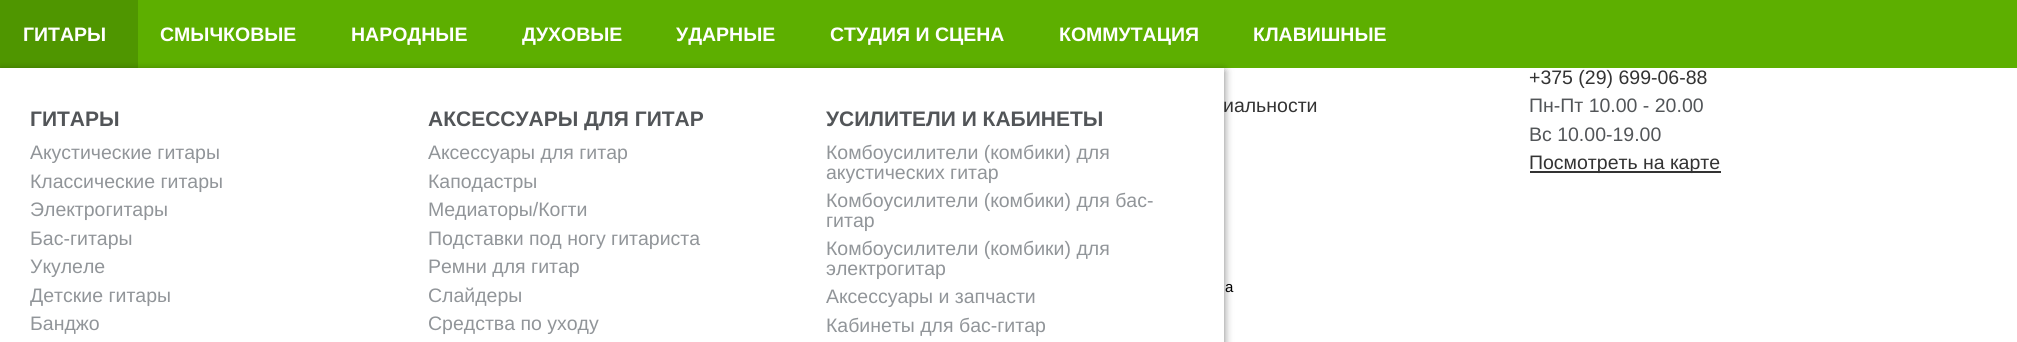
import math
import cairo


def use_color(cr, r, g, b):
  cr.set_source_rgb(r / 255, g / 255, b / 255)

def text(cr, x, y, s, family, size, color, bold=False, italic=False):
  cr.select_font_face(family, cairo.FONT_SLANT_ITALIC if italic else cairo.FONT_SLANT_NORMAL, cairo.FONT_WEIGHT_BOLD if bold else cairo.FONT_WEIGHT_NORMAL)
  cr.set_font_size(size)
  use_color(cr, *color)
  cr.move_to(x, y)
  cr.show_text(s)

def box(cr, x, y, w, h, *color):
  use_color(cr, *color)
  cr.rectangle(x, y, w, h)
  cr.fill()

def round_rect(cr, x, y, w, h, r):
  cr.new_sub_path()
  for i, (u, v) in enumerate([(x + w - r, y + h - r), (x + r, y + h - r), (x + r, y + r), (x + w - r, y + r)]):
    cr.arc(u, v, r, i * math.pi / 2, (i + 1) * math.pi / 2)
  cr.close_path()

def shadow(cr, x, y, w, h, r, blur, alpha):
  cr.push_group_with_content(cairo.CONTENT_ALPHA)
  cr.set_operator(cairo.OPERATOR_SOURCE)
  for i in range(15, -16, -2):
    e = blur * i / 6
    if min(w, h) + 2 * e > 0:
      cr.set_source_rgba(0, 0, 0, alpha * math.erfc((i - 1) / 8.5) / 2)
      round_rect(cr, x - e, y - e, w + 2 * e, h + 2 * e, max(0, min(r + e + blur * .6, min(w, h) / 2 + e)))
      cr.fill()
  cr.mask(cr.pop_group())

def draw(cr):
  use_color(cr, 255, 255, 255)
  cr.paint()
  box(cr, 138, 0, 1879, 68, 93, 175, 0)
  box(cr, 0, 0, 138, 68, 79, 150, 0)
  use_color(cr, 0, 0, 0)
  shadow(cr, 0, 71, 1224, 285, 0, 4.5, 0.5)
  box(cr, 1530, 171, 191, 2, 51, 51, 51)
  text(cr, 23, 41, "ГИТАРЫ", "Liberation Sans", 19.5, (255, 255, 255), bold=True)
  text(cr, 160, 41, "СМЫЧКОВЫЕ", "Liberation Sans", 19.5, (255, 255, 255), bold=True)
  text(cr, 351, 41, "НАРОДНЫЕ", "Liberation Sans", 19.5, (255, 255, 255), bold=True)
  text(cr, 522, 41, "ДУХОВЫЕ", "Liberation Sans", 19.5, (255, 255, 255), bold=True)
  text(cr, 676, 41, "УДАРНЫЕ", "Liberation Sans", 19.5, (255, 255, 255), bold=True)
  text(cr, 830, 41, "СТУДИЯ И СЦЕНА", "Liberation Sans", 19.5, (255, 255, 255), bold=True)
  text(cr, 1059, 41, "КОММУТАЦИЯ", "Liberation Sans", 19.5, (255, 255, 255), bold=True)
  text(cr, 1253, 41, "КЛАВИШНЫЕ", "Liberation Sans", 19.5, (255, 255, 255), bold=True)
  text(cr, 1223, 112, "иальности", "Liberation Sans", 19.5, (51, 51, 51))
  box(cr, 0, 68, 1224, 274, 255, 255, 255)
  text(cr, 826, 332, "Кабинеты для бас-гитар", "Liberation Sans", 19.5, (145, 149, 153))
  text(cr, 826, 303, "Аксессуары и запчасти", "Liberation Sans", 19.5, (145, 149, 153))
  text(cr, 826, 275, "электрогитар", "Liberation Sans", 19.5, (145, 149, 153))
  text(cr, 826, 255, "Комбоусилители (комбики) для", "Liberation Sans", 19.5, (145, 149, 153))
  text(cr, 826, 227, "гитар", "Liberation Sans", 19.5, (145, 149, 153))
  text(cr, 826, 207, "Комбоусилители (комбики) для бас-", "Liberation Sans", 19.5, (145, 149, 153))
  text(cr, 826, 179, "акустических гитар", "Liberation Sans", 19.5, (145, 149, 153))
  text(cr, 826, 159, "Комбоусилители (комбики) для", "Liberation Sans", 19.5, (145, 149, 153))
  text(cr, 826, 126, "УСИЛИТЕЛИ И КАБИНЕТЫ", "Liberation Sans", 21, (82, 85, 88), bold=True)
  text(cr, 428, 330, "Средства по уходу", "Liberation Sans", 19.5, (145, 149, 153))
  text(cr, 428, 302, "Слайдеры", "Liberation Sans", 19.5, (145, 149, 153))
  text(cr, 428, 273, "Ремни для гитар", "Liberation Sans", 19.5, (145, 149, 153))
  text(cr, 428, 245, "Подставки под ногу гитариста", "Liberation Sans", 19.5, (145, 149, 153))
  text(cr, 428, 216, "Медиаторы/Когти", "Liberation Sans", 19.5, (145, 149, 153))
  text(cr, 428, 188, "Каподастры", "Liberation Sans", 19.5, (145, 149, 153))
  text(cr, 428, 159, "Аксессуары для гитар", "Liberation Sans", 19.5, (145, 149, 153))
  text(cr, 428, 126, "АКСЕССУАРЫ ДЛЯ ГИТАР", "Liberation Sans", 21, (82, 85, 88), bold=True)
  text(cr, 30, 330, "Банджо", "Liberation Sans", 19.5, (145, 149, 153))
  text(cr, 30, 302, "Детские гитары", "Liberation Sans", 19.5, (145, 149, 153))
  text(cr, 30, 273, "Укулеле", "Liberation Sans", 19.5, (145, 149, 153))
  text(cr, 30, 245, "Бас-гитары", "Liberation Sans", 19.5, (145, 149, 153))
  text(cr, 30, 216, "Электрогитары", "Liberation Sans", 19.5, (145, 149, 153))
  text(cr, 30, 188, "Классические гитары", "Liberation Sans", 19.5, (145, 149, 153))
  text(cr, 30, 159, "Акустические гитары", "Liberation Sans", 19.5, (145, 149, 153))
  text(cr, 30, 126, "ГИТАРЫ", "Liberation Sans", 21, (82, 85, 88), bold=True)
  text(cr, 1529, 84, "+375 (29) 699-06-88", "Liberation Sans", 19.5, (51, 51, 51))
  text(cr, 1529, 112, "Пн-Пт 10.00 - 20.00", "Liberation Sans", 19.5, (82, 85, 88))
  text(cr, 1529, 141, "Вс 10.00-19.00", "Liberation Sans", 19.5, (82, 85, 88))
  text(cr, 1529, 169, "Посмотреть на карте", "Liberation Sans", 19.5, (51, 51, 51))
  text(cr, 1225, 292, "а", "Liberation Sans", 15, (0, 0, 0))


surface = cairo.ImageSurface(cairo.FORMAT_RGB24, 2017, 342)
cr = cairo.Context(surface)
options = cairo.FontOptions()
options.set_hint_metrics(cairo.HINT_METRICS_OFF)
options.set_hint_style(cairo.HINT_STYLE_NONE)
cr.set_font_options(options)
cr.set_miter_limit(4)
draw(cr)
surface.write_to_png("out.png")
